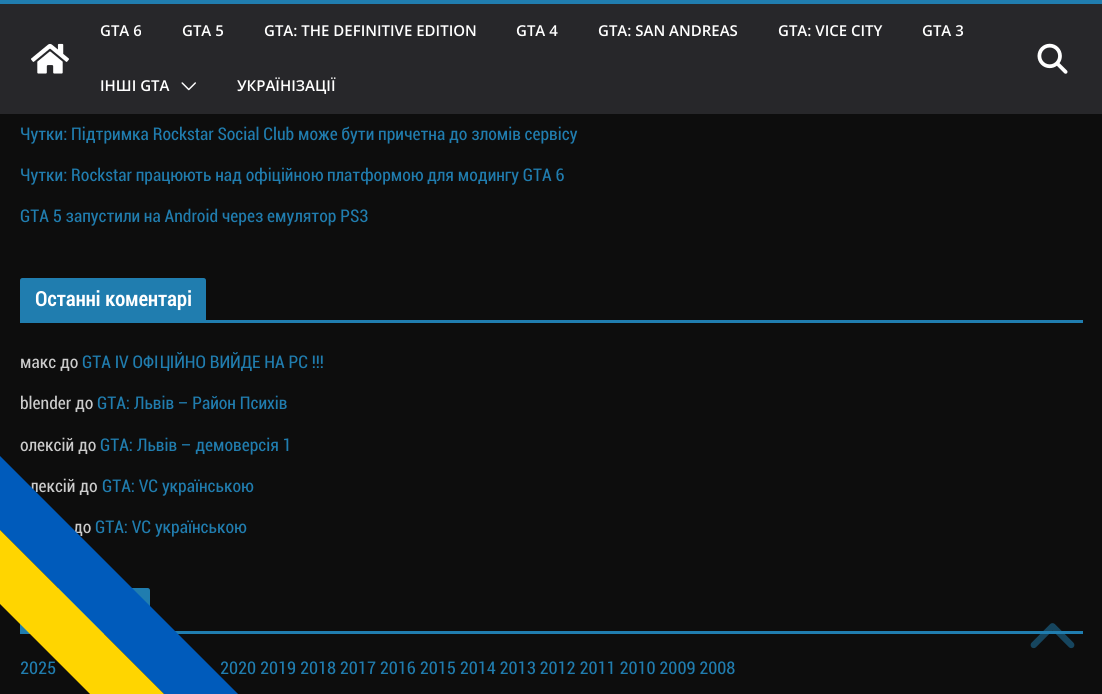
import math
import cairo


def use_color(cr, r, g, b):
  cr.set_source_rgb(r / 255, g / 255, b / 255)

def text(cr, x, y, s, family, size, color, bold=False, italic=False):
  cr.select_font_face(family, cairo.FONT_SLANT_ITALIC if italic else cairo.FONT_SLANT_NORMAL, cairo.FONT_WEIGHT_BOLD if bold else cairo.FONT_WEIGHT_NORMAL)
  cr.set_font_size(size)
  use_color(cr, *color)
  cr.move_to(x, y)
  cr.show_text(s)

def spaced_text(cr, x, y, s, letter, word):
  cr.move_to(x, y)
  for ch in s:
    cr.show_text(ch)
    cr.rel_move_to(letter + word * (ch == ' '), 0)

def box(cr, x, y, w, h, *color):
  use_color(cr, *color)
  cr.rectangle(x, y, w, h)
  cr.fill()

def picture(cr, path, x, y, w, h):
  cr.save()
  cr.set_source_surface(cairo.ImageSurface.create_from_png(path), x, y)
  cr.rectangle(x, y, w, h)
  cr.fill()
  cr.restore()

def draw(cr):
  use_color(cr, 13, 13, 13)
  cr.paint()
  box(cr, 0, 4, 1102, 110, 39, 39, 42)
  box(cr, 0, 0, 1102, 4, 32, 125, 175)
  picture(cr, "img_01.png", 31, 43, 38, 31)
  picture(cr, "img_02.png", 181, 82, 15, 9)
  picture(cr, "img_03.png", 1037, 43, 31, 31)
  box(cr, 20, 320, 1063, 3, 32, 125, 175)
  cr.new_path()
  cr.move_to(22.5, 278)
  cr.line_to(203.5, 278)
  cr.curve_to(205, 278, 206, 279, 206, 280.5)
  cr.line_to(206, 320)
  cr.line_to(20, 320)
  cr.line_to(20, 280.5)
  cr.curve_to(20, 279, 21, 278, 22.5, 278)
  cr.close_path()
  cr.fill()
  box(cr, 20, 631, 1063, 3, 32, 125, 175)
  cr.new_path()
  cr.move_to(22.5, 588)
  cr.line_to(147.5, 588)
  cr.curve_to(149, 588, 150, 589, 150, 590.5)
  cr.line_to(150, 631)
  cr.line_to(20, 631)
  cr.line_to(20, 590.5)
  cr.curve_to(20, 589, 21, 588, 22.5, 588)
  cr.close_path()
  cr.fill()
  picture(cr, "img_04.png", 1030, 623, 45, 26)
  text(cr, 100, 36, "GTA 6", "Open Sans SemiBold", 15, (255, 255, 255))
  text(cr, 182, 36, "GTA 5", "Open Sans SemiBold", 15, (255, 255, 255))
  text(cr, 264, 36, "GTA: THE DEFINITIVE EDITION", "Open Sans SemiBold", 15, (255, 255, 255))
  text(cr, 516, 36, "GTA 4", "Open Sans SemiBold", 15, (255, 255, 255))
  text(cr, 598, 36, "GTA: SAN ANDREAS", "Open Sans SemiBold", 15, (255, 255, 255))
  text(cr, 778, 36, "GTA: VICE CITY", "Open Sans SemiBold", 15, (255, 255, 255))
  text(cr, 922, 36, "GTA 3", "Open Sans SemiBold", 15, (255, 255, 255))
  text(cr, 100, 91, "ІНШІ GTA", "Open Sans SemiBold", 15, (255, 255, 255))
  text(cr, 237, 91, "УКРАЇНІЗАЦІЇ", "Open Sans SemiBold", 15, (255, 255, 255))
  text(cr, 20, 140, "Чутки: Підтримка Rockstar Social Club може бути причетна до зломів сервісу", "Roboto", 17.5, (32, 125, 175))
  text(cr, 20, 181, "Чутки: Rockstar працюють над офіційною платформою для модингу GTA 6", "Roboto", 17.5, (32, 125, 175))
  text(cr, 20, 222, "GTA 5 запустили на Android через емулятор PS3", "Roboto", 17.5, (32, 125, 175))
  cr.select_font_face("Roboto", cairo.FONT_SLANT_NORMAL, cairo.FONT_WEIGHT_BOLD)
  cr.set_font_size(20)
  use_color(cr, 255, 255, 255)
  spaced_text(cr, 35, 306, "Останні коментарі", 0.25, 0)
  text(cr, 20, 368, "макс до", "Roboto", 17.5, (204, 204, 204))
  text(cr, 82, 368, "GTA IV ОФІЦІЙНО ВИЙДЕ НА PC !!!", "Roboto", 17.5, (32, 125, 175))
  text(cr, 20, 409, "blender до", "Roboto", 17.5, (204, 204, 204))
  text(cr, 97, 409, "GTA: Львів – Район Психів", "Roboto", 17.5, (32, 125, 175))
  text(cr, 20, 451, "олексій до", "Roboto", 17.5, (204, 204, 204))
  text(cr, 100, 451, "GTA: Львів – демоверсія 1", "Roboto", 17.5, (32, 125, 175))
  text(cr, 30, 492, "лексій до", "Roboto", 17.5, (204, 204, 204))
  text(cr, 102, 492, "GTA: VC українською", "Roboto", 17.5, (32, 125, 175))
  text(cr, 73, 533, "до", "Roboto", 17.5, (204, 204, 204))
  text(cr, 95, 533, "GTA: VC українською", "Roboto", 17.5, (32, 125, 175))
  text(cr, 20, 674, "2025", "Roboto", 17.5, (32, 125, 175))
  text(cr, 220, 674, "2020 2019 2018 2017 2016 2015 2014 2013 2012 2011 2010 2009 2008", "Roboto", 17.5, (32, 125, 175))
  use_color(cr, 0, 91, 187)
  cr.new_path()
  cr.move_to(-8, 448)
  cr.line_to(257, 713)
  cr.line_to(220, 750)
  cr.line_to(-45, 485)
  cr.close_path()
  cr.fill()
  use_color(cr, 255, 213, 0)
  cr.new_path()
  cr.move_to(-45, 485)
  cr.line_to(220, 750)
  cr.line_to(183, 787)
  cr.line_to(-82, 522)
  cr.close_path()
  cr.fill()


surface = cairo.ImageSurface(cairo.FORMAT_RGB24, 1102, 694)
cr = cairo.Context(surface)
options = cairo.FontOptions()
options.set_hint_metrics(cairo.HINT_METRICS_OFF)
options.set_hint_style(cairo.HINT_STYLE_NONE)
cr.set_font_options(options)
cr.set_miter_limit(4)
draw(cr)
surface.write_to_png("out.png")
